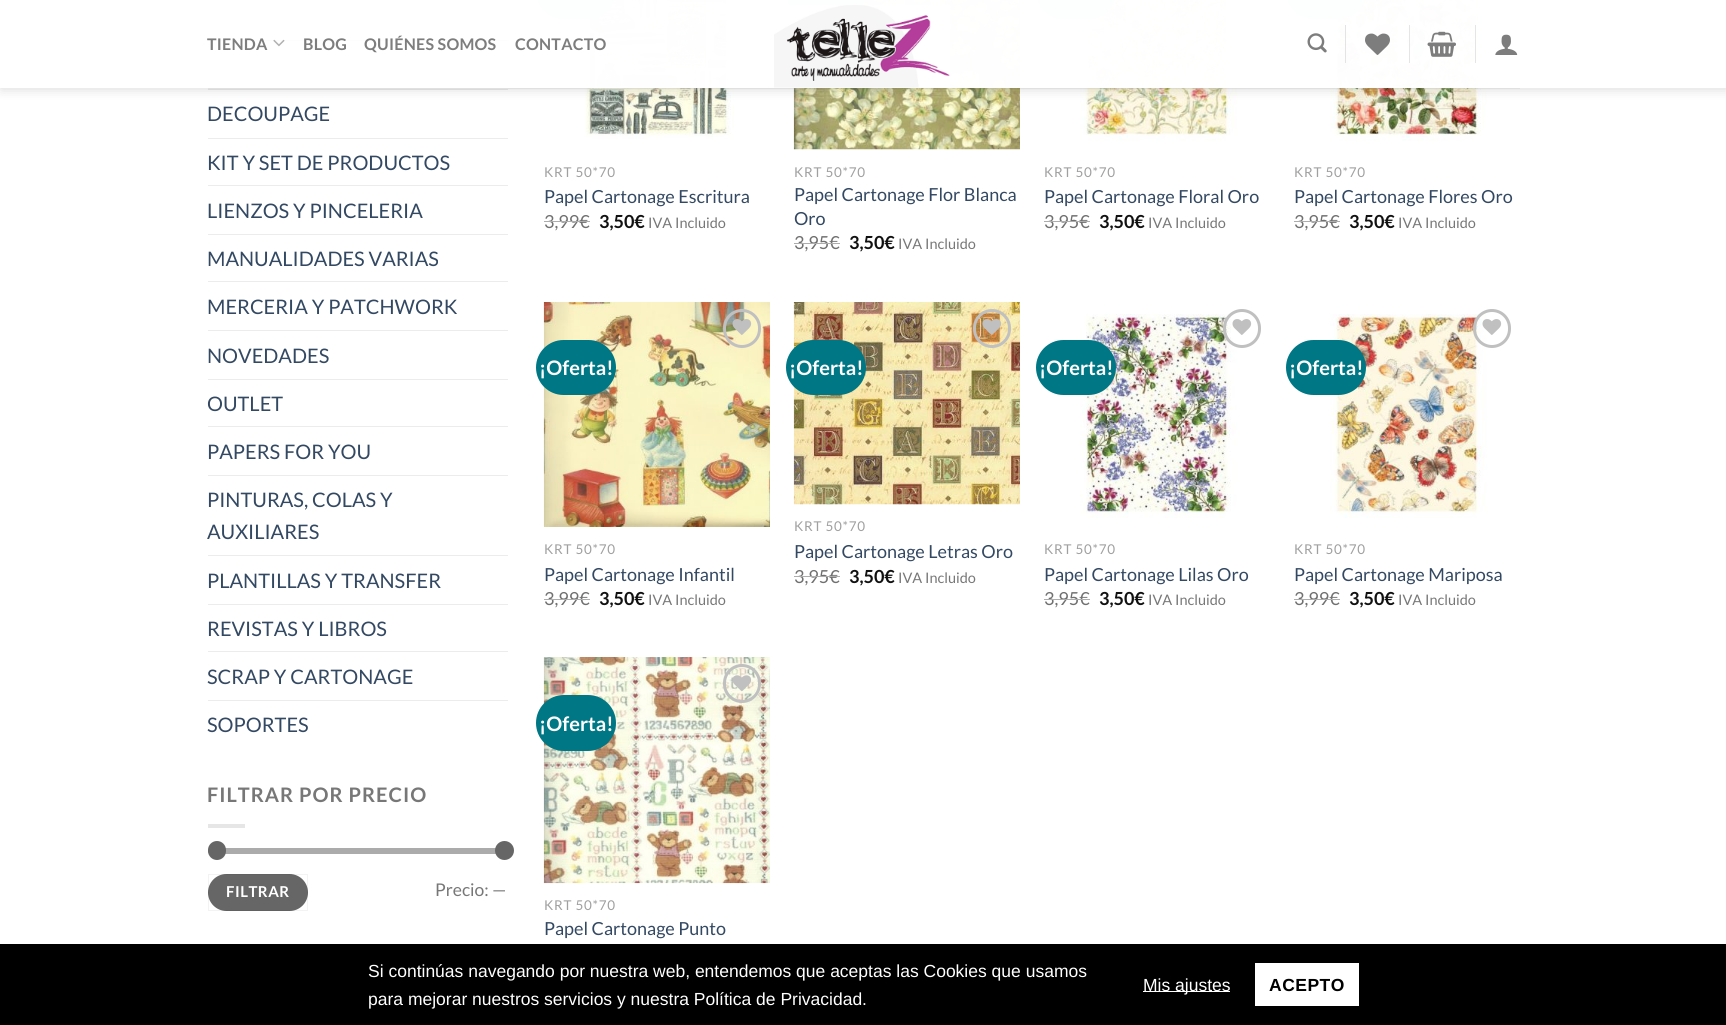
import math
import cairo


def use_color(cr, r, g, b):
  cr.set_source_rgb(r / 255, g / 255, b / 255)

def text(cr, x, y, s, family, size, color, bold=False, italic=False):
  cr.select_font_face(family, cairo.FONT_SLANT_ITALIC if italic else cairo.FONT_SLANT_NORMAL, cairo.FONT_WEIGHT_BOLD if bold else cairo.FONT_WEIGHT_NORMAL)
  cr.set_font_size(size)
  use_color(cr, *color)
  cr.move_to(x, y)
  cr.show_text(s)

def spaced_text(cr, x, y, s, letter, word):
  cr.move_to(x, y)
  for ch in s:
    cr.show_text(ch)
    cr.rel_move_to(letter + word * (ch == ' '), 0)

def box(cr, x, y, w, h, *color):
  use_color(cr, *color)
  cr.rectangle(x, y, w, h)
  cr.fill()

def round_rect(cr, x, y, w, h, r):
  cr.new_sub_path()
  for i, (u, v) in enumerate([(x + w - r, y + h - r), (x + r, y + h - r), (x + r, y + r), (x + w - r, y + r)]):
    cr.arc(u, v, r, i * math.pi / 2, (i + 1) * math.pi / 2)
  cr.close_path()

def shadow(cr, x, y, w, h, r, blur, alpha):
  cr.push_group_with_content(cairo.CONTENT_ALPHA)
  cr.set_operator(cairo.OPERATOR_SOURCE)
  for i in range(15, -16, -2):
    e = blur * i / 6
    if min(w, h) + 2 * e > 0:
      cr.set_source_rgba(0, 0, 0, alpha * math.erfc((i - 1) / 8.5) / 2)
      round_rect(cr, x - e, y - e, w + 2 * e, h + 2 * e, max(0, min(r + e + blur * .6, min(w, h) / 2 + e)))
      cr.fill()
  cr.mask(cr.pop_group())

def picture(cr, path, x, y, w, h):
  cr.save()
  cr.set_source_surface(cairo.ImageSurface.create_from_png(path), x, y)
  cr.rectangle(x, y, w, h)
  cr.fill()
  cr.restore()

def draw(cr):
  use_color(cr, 255, 255, 255)
  cr.paint()
  box(cr, 208, 40, 300, 1, 236, 236, 236)
  box(cr, 208, 89, 300, 1, 236, 236, 236)
  picture(cr, "img_07.png", 585, 0, 149, 139)
  use_color(cr, 0, 119, 132)
  round_rect(cr, 536, -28, 80, 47, 28)
  cr.fill()
  picture(cr, "img_08.png", 793, 0, 227, 150)
  round_rect(cr, 786, -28, 80, 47, 28)
  cr.fill()
  picture(cr, "img_09.png", 1080, 0, 157, 141)
  round_rect(cr, 1036, -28, 80, 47, 28)
  cr.fill()
  picture(cr, "img_10.png", 1330, 0, 157, 141)
  round_rect(cr, 1286, -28, 80, 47, 28)
  cr.fill()
  cr.save()
  cr.set_fill_rule(cairo.FILL_RULE_EVEN_ODD)
  cr.new_path()
  cr.move_to(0, 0)
  cr.line_to(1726, 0)
  cr.line_to(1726, 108)
  cr.line_to(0, 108)
  cr.close_path()
  cr.move_to(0, 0)
  cr.line_to(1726, 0)
  cr.line_to(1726, 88)
  cr.line_to(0, 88)
  cr.close_path()
  cr.clip()
  use_color(cr, 0, 0, 0)
  shadow(cr, 1, 1, 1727, 88, 0, 6, 0.15)
  cr.restore()
  cr.set_source_rgba(1, 1, 1, 0.9)
  cr.rectangle(0, 0, 1726, 88)
  cr.fill()
  picture(cr, "img_01.png", 273, 39, 12, 8)
  cr.rectangle(537, 0, 940, 88)
  cr.fill()
  picture(cr, "img_02.png", 774, 5, 176, 83)
  picture(cr, "img_03.png", 1307, 33, 20, 20)
  box(cr, 1345, 25, 1, 38, 229, 228, 228)
  picture(cr, "img_04.png", 1365, 33, 25, 22)
  box(cr, 1409, 25, 1, 38, 229, 229, 229)
  picture(cr, "img_05.png", 1427, 31, 29, 26)
  box(cr, 1475, 25, 1, 38, 229, 229, 229)
  picture(cr, "img_06.png", 1495, 34, 23, 21)
  cr.set_source_rgba(0.467, 0.467, 0.467, 0.1)
  cr.rectangle(208, 88, 1312, 1)
  cr.fill()
  box(cr, 208, 138, 300, 1, 236, 236, 236)
  box(cr, 208, 185, 300, 1, 236, 236, 236)
  box(cr, 208, 234, 300, 1, 236, 236, 236)
  box(cr, 208, 281, 300, 1, 236, 236, 236)
  box(cr, 208, 330, 300, 1, 236, 236, 236)
  box(cr, 208, 379, 300, 1, 236, 236, 236)
  box(cr, 208, 426, 300, 1, 236, 236, 236)
  box(cr, 208, 475, 300, 1, 236, 236, 236)
  box(cr, 208, 555, 300, 1, 236, 236, 236)
  box(cr, 208, 604, 300, 1, 236, 236, 236)
  box(cr, 208, 651, 300, 1, 236, 236, 236)
  box(cr, 208, 700, 300, 1, 236, 236, 236)
  box(cr, 208, 824, 37, 4, 230, 230, 230)
  use_color(cr, 241, 241, 241)
  round_rect(cr, 208, 848, 300, 6, 3)
  cr.fill()
  cr.set_source_rgba(0.4, 0.4, 0.4, 0.5)
  round_rect(cr, 208, 848, 300, 6, 3)
  cr.fill()
  use_color(cr, 102, 102, 102)
  round_rect(cr, 208, 841, 18, 19, 9)
  cr.fill()
  cr.arc(504.5, 850.5, 9.5, 0, 2 * math.pi)
  cr.fill()
  round_rect(cr, 208, 874, 100, 37, 18.5)
  cr.fill()
  cr.rectangle(208.5, 874.5, 99, 36)
  cr.set_source_rgba(0, 0, 0, 0.05)
  cr.set_line_width(1)
  cr.stroke()
  picture(cr, "img_11.png", 543, 302, 227, 225)
  use_color(cr, 0, 119, 132)
  round_rect(cr, 536, 340, 80, 55, 27.5)
  cr.fill()
  round_rect(cr, 724.5, 310.5, 35, 36, 17.5)
  use_color(cr, 192, 192, 192)
  cr.set_line_width(3)
  cr.stroke()
  picture(cr, "img_12.png", 732, 319, 20, 16)
  picture(cr, "img_13.png", 793, 302, 227, 203)
  use_color(cr, 0, 119, 132)
  round_rect(cr, 786, 340, 80, 55, 27.5)
  cr.fill()
  round_rect(cr, 974.5, 310.5, 35, 36, 17.5)
  use_color(cr, 192, 192, 192)
  cr.stroke()
  picture(cr, "img_14.png", 982, 319, 20, 16)
  picture(cr, "img_15.png", 1080, 314, 157, 204)
  use_color(cr, 0, 119, 132)
  round_rect(cr, 1036, 340, 80, 55, 27.5)
  cr.fill()
  round_rect(cr, 1224.5, 310.5, 35, 36, 17.5)
  use_color(cr, 192, 192, 192)
  cr.stroke()
  picture(cr, "img_16.png", 1232, 319, 20, 16)
  picture(cr, "img_17.png", 1330, 314, 157, 204)
  use_color(cr, 0, 119, 132)
  round_rect(cr, 1286, 340, 80, 55, 27.5)
  cr.fill()
  round_rect(cr, 1474.5, 310.5, 35, 36, 17.5)
  use_color(cr, 192, 192, 192)
  cr.stroke()
  picture(cr, "img_18.png", 1482, 319, 20, 16)
  picture(cr, "img_19.png", 543, 657, 227, 227)
  use_color(cr, 0, 119, 132)
  round_rect(cr, 536, 695, 80, 56, 28)
  cr.fill()
  round_rect(cr, 724.5, 665.5, 35, 36, 17.5)
  use_color(cr, 192, 192, 192)
  cr.stroke()
  picture(cr, "img_20.png", 732, 675, 20, 17)
  box(cr, 0, 944, 1726, 81, 0, 0, 0)
  box(cr, 1143, 991, 87, 1, 255, 255, 255)
  box(cr, 1255, 963, 104, 43, 255, 255, 255)
  cr.select_font_face("Lato", cairo.FONT_SLANT_NORMAL, cairo.FONT_WEIGHT_BOLD)
  cr.set_font_size(16)
  use_color(cr, 125, 125, 125)
  spaced_text(cr, 207, 50, "TIENDA", 0.25, 0)
  spaced_text(cr, 303, 50, "BLOG", 0.25, 0)
  spaced_text(cr, 364, 50, "QUIÉNES SOMOS", 0.25, 0)
  spaced_text(cr, 515, 50, "CONTACTO", 0.25, 0)
  text(cr, 207, 121, "DECOUPAGE", "Lato", 20, (51, 72, 98))
  text(cr, 207, 170, "KIT Y SET DE PRODUCTOS", "Lato", 20, (51, 72, 98))
  text(cr, 207, 218, "LIENZOS Y PINCELERIA", "Lato", 20, (51, 72, 98))
  text(cr, 207, 266, "MANUALIDADES VARIAS", "Lato", 20, (51, 72, 98))
  text(cr, 207, 314, "MERCERIA Y PATCHWORK", "Lato", 20, (51, 72, 98))
  text(cr, 207, 363, "NOVEDADES", "Lato", 20, (51, 72, 98))
  text(cr, 207, 411, "OUTLET", "Lato", 20, (51, 72, 98))
  text(cr, 207, 459, "PAPERS FOR YOU", "Lato", 20, (51, 72, 98))
  text(cr, 207, 507, "PINTURAS, COLAS Y", "Lato", 20, (51, 72, 98))
  text(cr, 207, 539, "AUXILIARES", "Lato", 20, (51, 72, 98))
  text(cr, 207, 588, "PLANTILLAS Y TRANSFER", "Lato", 20, (51, 72, 98))
  text(cr, 207, 636, "REVISTAS Y LIBROS", "Lato", 20, (51, 72, 98))
  text(cr, 207, 684, "SCRAP Y CARTONAGE", "Lato", 20, (51, 72, 98))
  text(cr, 207, 732, "SOPORTES", "Lato", 20, (51, 72, 98))
  cr.select_font_face("Lato", cairo.FONT_SLANT_NORMAL, cairo.FONT_WEIGHT_BOLD)
  use_color(cr, 119, 119, 119)
  spaced_text(cr, 207, 802, "FILTRAR POR PRECIO", 1, 0)
  cr.set_font_size(15)
  use_color(cr, 255, 255, 255)
  spaced_text(cr, 226, 897, "FILTRAR", 0.5, 0)
  text(cr, 435, 896, "Precio: —", "Lato", 17.5, (119, 119, 119))
  cr.set_font_size(13.5)
  use_color(cr, 160, 160, 160)
  spaced_text(cr, 544, 177, "KRT 50*70", 0.75, 0)
  text(cr, 544, 203, "Papel Cartonage Escritura", "Lato", 18, (51, 72, 98))
  text(cr, 544, 228, "3,99€", "Lato", 18, (112, 112, 112))
  box(cr, 544, 221, 46, 1, 173, 173, 173)
  text(cr, 599, 228, "3,50€", "Lato", 18, (17, 17, 17), bold=True)
  text(cr, 648, 228, "IVA Incluido", "Lato", 14.5, (119, 119, 119))
  cr.set_font_size(13.5)
  use_color(cr, 160, 160, 160)
  spaced_text(cr, 794, 177, "KRT 50*70", 0.75, 0)
  text(cr, 794, 201, "Papel Cartonage Flor Blanca", "Lato", 18, (51, 72, 98))
  text(cr, 794, 225, "Oro", "Lato", 18, (51, 72, 98))
  text(cr, 794, 249, "3,95€", "Lato", 18, (112, 112, 112))
  box(cr, 794, 243, 46, 1, 173, 173, 173)
  text(cr, 849, 249, "3,50€", "Lato", 18, (17, 17, 17), bold=True)
  text(cr, 898, 249, "IVA Incluido", "Lato", 14.5, (119, 119, 119))
  cr.set_font_size(13.5)
  use_color(cr, 160, 160, 160)
  spaced_text(cr, 1044, 177, "KRT 50*70", 0.75, 0)
  text(cr, 1044, 203, "Papel Cartonage Floral Oro", "Lato", 18, (51, 72, 98))
  text(cr, 1044, 228, "3,95€", "Lato", 18, (112, 112, 112))
  box(cr, 1044, 221, 46, 1, 173, 173, 173)
  text(cr, 1099, 228, "3,50€", "Lato", 18, (17, 17, 17), bold=True)
  text(cr, 1148, 228, "IVA Incluido", "Lato", 14.5, (119, 119, 119))
  cr.set_font_size(13.5)
  use_color(cr, 160, 160, 160)
  spaced_text(cr, 1294, 177, "KRT 50*70", 0.75, 0)
  text(cr, 1294, 203, "Papel Cartonage Flores Oro", "Lato", 18, (51, 72, 98))
  text(cr, 1294, 228, "3,95€", "Lato", 18, (112, 112, 112))
  box(cr, 1294, 221, 46, 1, 173, 173, 173)
  text(cr, 1349, 228, "3,50€", "Lato", 18, (17, 17, 17), bold=True)
  text(cr, 1398, 228, "IVA Incluido", "Lato", 14.5, (119, 119, 119))
  text(cr, 539, 375, "¡Oferta!", "Lato", 20, (255, 255, 255), bold=True)
  cr.select_font_face("Lato")
  cr.set_font_size(13.5)
  use_color(cr, 160, 160, 160)
  spaced_text(cr, 544, 554, "KRT 50*70", 0.75, 0)
  text(cr, 544, 581, "Papel Cartonage Infantil", "Lato", 18, (51, 72, 98))
  text(cr, 544, 605, "3,99€", "Lato", 18, (112, 112, 112))
  box(cr, 544, 599, 46, 1, 173, 173, 173)
  text(cr, 599, 605, "3,50€", "Lato", 18, (17, 17, 17), bold=True)
  text(cr, 648, 605, "IVA Incluido", "Lato", 14.5, (119, 119, 119))
  text(cr, 789, 375, "¡Oferta!", "Lato", 20, (255, 255, 255), bold=True)
  cr.select_font_face("Lato")
  cr.set_font_size(13.5)
  use_color(cr, 160, 160, 160)
  spaced_text(cr, 794, 531, "KRT 50*70", 0.75, 0)
  text(cr, 794, 558, "Papel Cartonage Letras Oro", "Lato", 18, (51, 72, 98))
  text(cr, 794, 583, "3,95€", "Lato", 18, (112, 112, 112))
  box(cr, 794, 576, 46, 1, 173, 173, 173)
  text(cr, 849, 583, "3,50€", "Lato", 18, (17, 17, 17), bold=True)
  text(cr, 898, 583, "IVA Incluido", "Lato", 14.5, (119, 119, 119))
  text(cr, 1039, 375, "¡Oferta!", "Lato", 20, (255, 255, 255), bold=True)
  cr.select_font_face("Lato")
  cr.set_font_size(13.5)
  use_color(cr, 160, 160, 160)
  spaced_text(cr, 1044, 554, "KRT 50*70", 0.75, 0)
  text(cr, 1044, 581, "Papel Cartonage Lilas Oro", "Lato", 18, (51, 72, 98))
  text(cr, 1044, 605, "3,95€", "Lato", 18, (112, 112, 112))
  box(cr, 1044, 599, 46, 1, 173, 173, 173)
  text(cr, 1099, 605, "3,50€", "Lato", 18, (17, 17, 17), bold=True)
  text(cr, 1148, 605, "IVA Incluido", "Lato", 14.5, (119, 119, 119))
  text(cr, 1289, 375, "¡Oferta!", "Lato", 20, (255, 255, 255), bold=True)
  cr.select_font_face("Lato")
  cr.set_font_size(13.5)
  use_color(cr, 160, 160, 160)
  spaced_text(cr, 1294, 554, "KRT 50*70", 0.75, 0)
  text(cr, 1294, 581, "Papel Cartonage Mariposa", "Lato", 18, (51, 72, 98))
  text(cr, 1294, 605, "3,99€", "Lato", 18, (112, 112, 112))
  box(cr, 1294, 599, 46, 1, 173, 173, 173)
  text(cr, 1349, 605, "3,50€", "Lato", 18, (17, 17, 17), bold=True)
  text(cr, 1398, 605, "IVA Incluido", "Lato", 14.5, (119, 119, 119))
  text(cr, 539, 731, "¡Oferta!", "Lato", 20, (255, 255, 255), bold=True)
  cr.select_font_face("Lato")
  cr.set_font_size(13.5)
  use_color(cr, 160, 160, 160)
  spaced_text(cr, 544, 910, "KRT 50*70", 0.75, 0)
  text(cr, 544, 935, "Papel Cartonage Punto", "Lato", 18, (51, 72, 98))
  text(cr, 368, 977, "Si continúas navegando por nuestra web, entendemos que aceptas las Cookies que usamos", "Liberation Sans", 17.5, (255, 255, 255))
  text(cr, 368, 1005, "para mejorar nuestros servicios y nuestra Política de Privacidad.", "Liberation Sans", 17.5, (255, 255, 255))
  text(cr, 1143, 991, "Mis ajustes", "Liberation Sans", 17.5, (255, 255, 255))
  cr.select_font_face("Liberation Sans", cairo.FONT_SLANT_NORMAL, cairo.FONT_WEIGHT_BOLD)
  use_color(cr, 0, 0, 0)
  spaced_text(cr, 1269, 991, "ACEPTO", 0.5, 0)


surface = cairo.ImageSurface(cairo.FORMAT_RGB24, 1726, 1025)
cr = cairo.Context(surface)
options = cairo.FontOptions()
options.set_hint_metrics(cairo.HINT_METRICS_OFF)
options.set_hint_style(cairo.HINT_STYLE_NONE)
cr.set_font_options(options)
cr.set_miter_limit(4)
draw(cr)
surface.write_to_png("out.png")
